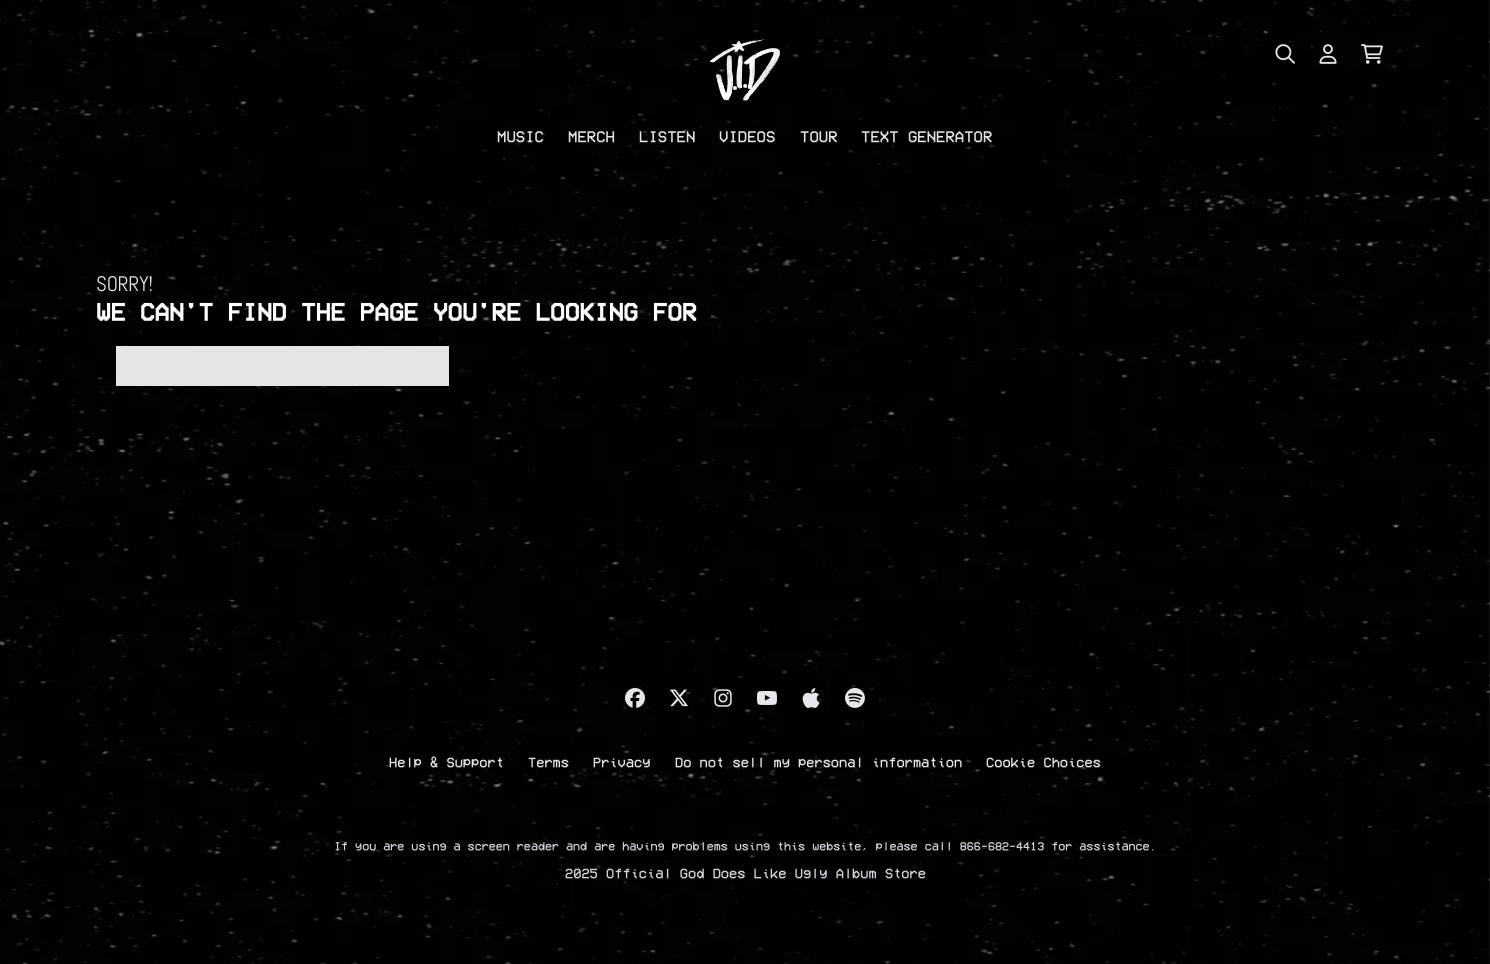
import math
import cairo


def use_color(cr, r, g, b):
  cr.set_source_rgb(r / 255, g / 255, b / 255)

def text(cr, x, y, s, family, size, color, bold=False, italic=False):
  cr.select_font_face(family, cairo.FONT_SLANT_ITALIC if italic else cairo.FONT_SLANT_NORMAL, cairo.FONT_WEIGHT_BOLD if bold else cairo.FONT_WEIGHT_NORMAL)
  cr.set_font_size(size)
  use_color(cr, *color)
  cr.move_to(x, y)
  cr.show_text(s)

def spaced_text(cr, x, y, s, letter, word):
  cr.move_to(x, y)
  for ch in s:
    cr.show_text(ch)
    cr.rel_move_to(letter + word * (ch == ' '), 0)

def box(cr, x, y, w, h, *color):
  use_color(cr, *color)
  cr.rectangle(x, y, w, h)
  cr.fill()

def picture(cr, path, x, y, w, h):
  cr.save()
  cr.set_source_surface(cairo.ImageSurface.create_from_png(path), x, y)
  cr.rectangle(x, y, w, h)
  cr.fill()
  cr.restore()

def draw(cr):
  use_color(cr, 255, 255, 255)
  cr.paint()
  picture(cr, "img_01.png", 0, 0, 1490, 964)
  picture(cr, "img_02.png", 710, 39, 70, 62)
  picture(cr, "img_03.png", 1275, 44, 20, 20)
  picture(cr, "img_04.png", 1319, 44, 18, 20)
  picture(cr, "img_05.png", 1361, 44, 22, 20)
  box(cr, 116, 346, 333, 40, 228, 229, 231)
  picture(cr, "img_06.png", 625, 688, 20, 20)
  picture(cr, "img_07.png", 670, 689, 18, 18)
  picture(cr, "img_08.png", 714, 689, 18, 18)
  picture(cr, "img_09.png", 757, 691, 20, 14)
  picture(cr, "img_10.png", 802, 688, 18, 20)
  picture(cr, "img_11.png", 845, 688, 20, 20)
  text(cr, 497, 143, "MUSIC", "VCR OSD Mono", 16, (228, 229, 231))
  text(cr, 568, 143, "MERCH", "VCR OSD Mono", 16, (228, 229, 231))
  text(cr, 639, 143, "LISTEN", "VCR OSD Mono", 16, (228, 229, 231))
  text(cr, 719, 143, "VIDEOS", "VCR OSD Mono", 16, (228, 229, 231))
  text(cr, 800, 143, "TOUR", "VCR OSD Mono", 16, (228, 229, 231))
  text(cr, 861, 143, "TEXT GENERATOR", "VCR OSD Mono", 16, (228, 229, 231))
  cr.select_font_face("Abel")
  cr.set_font_size(21)
  spaced_text(cr, 96, 291, "SORRY!", -0.25, 0)
  text(cr, 96, 322, "WE CAN'T FIND THE PAGE YOU'RE LOOKING FOR", "VCR OSD Mono", 25, (255, 255, 255), bold=True)
  text(cr, 389, 768, "Help & Support", "VCR OSD Mono", 14, (228, 229, 231))
  text(cr, 528, 768, "Terms", "VCR OSD Mono", 14, (228, 229, 231))
  text(cr, 593, 768, "Privacy", "VCR OSD Mono", 14, (228, 229, 231))
  text(cr, 675, 768, "Do not sell my personal information", "VCR OSD Mono", 14, (228, 229, 231))
  text(cr, 986, 768, "Cookie Choices", "VCR OSD Mono", 14, (228, 229, 231))
  text(cr, 334, 851, "If you are using a screen reader and are having problems using this website, please call 866-682-4413 for assistance.", "VCR OSD Mono", 12, (209, 213, 219))
  text(cr, 565, 879, "2025 Official God Does Like Ugly Album Store", "VCR OSD Mono", 14, (209, 213, 219))


surface = cairo.ImageSurface(cairo.FORMAT_RGB24, 1490, 964)
cr = cairo.Context(surface)
options = cairo.FontOptions()
options.set_hint_metrics(cairo.HINT_METRICS_OFF)
options.set_hint_style(cairo.HINT_STYLE_NONE)
cr.set_font_options(options)
cr.set_miter_limit(4)
draw(cr)
surface.write_to_png("out.png")
